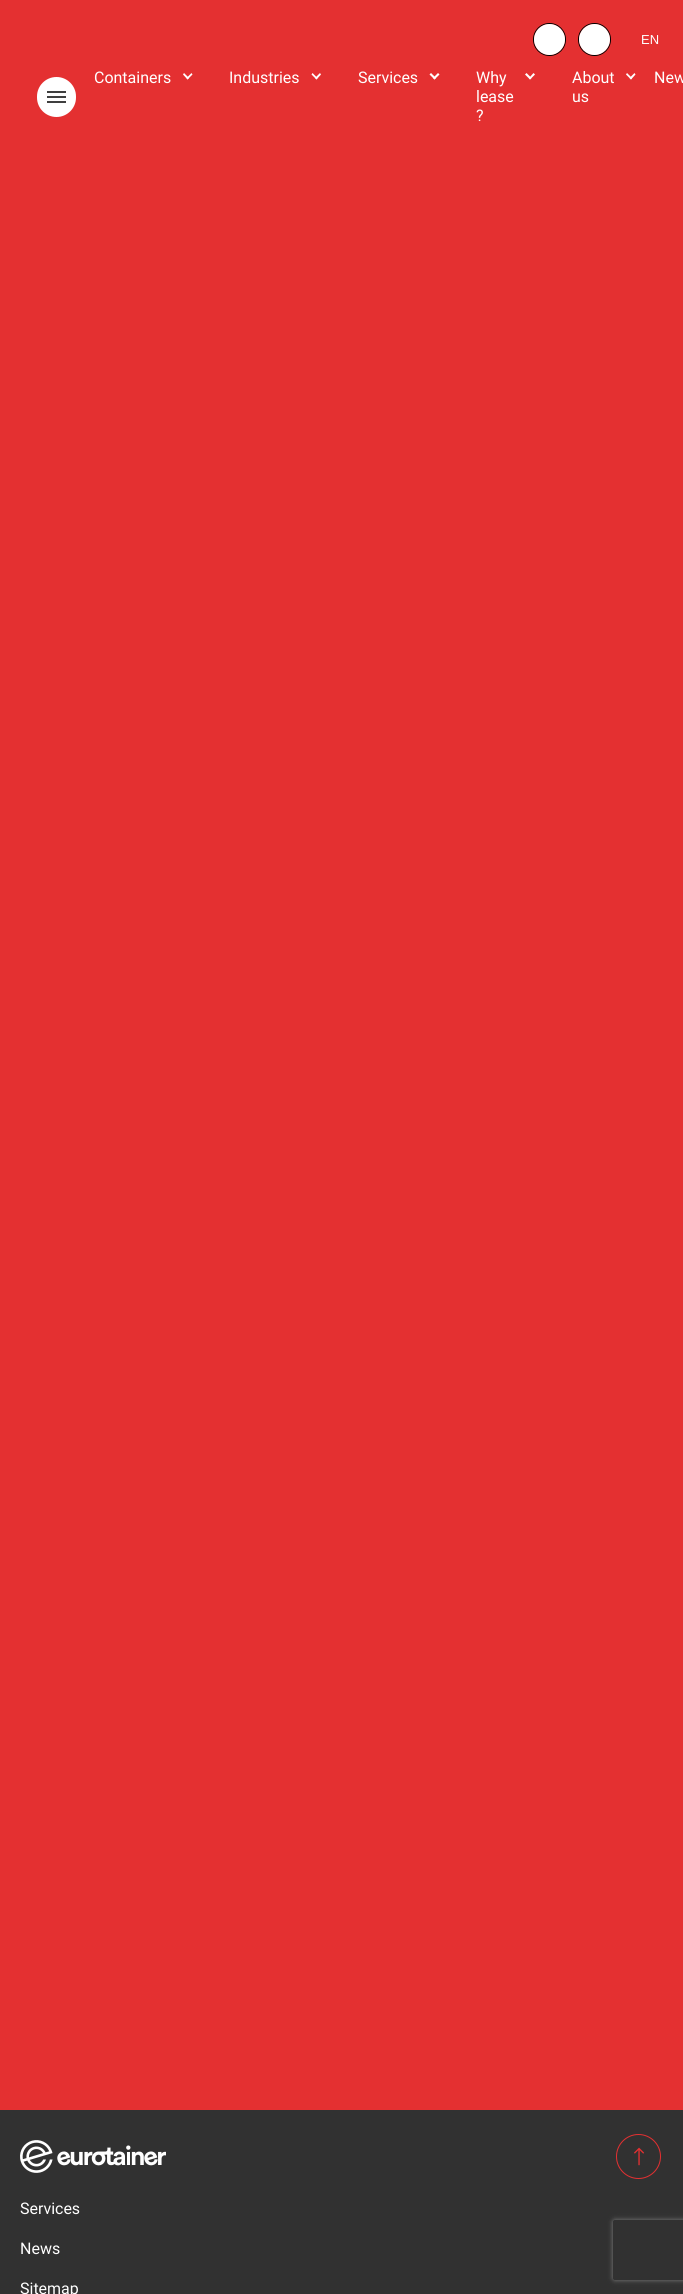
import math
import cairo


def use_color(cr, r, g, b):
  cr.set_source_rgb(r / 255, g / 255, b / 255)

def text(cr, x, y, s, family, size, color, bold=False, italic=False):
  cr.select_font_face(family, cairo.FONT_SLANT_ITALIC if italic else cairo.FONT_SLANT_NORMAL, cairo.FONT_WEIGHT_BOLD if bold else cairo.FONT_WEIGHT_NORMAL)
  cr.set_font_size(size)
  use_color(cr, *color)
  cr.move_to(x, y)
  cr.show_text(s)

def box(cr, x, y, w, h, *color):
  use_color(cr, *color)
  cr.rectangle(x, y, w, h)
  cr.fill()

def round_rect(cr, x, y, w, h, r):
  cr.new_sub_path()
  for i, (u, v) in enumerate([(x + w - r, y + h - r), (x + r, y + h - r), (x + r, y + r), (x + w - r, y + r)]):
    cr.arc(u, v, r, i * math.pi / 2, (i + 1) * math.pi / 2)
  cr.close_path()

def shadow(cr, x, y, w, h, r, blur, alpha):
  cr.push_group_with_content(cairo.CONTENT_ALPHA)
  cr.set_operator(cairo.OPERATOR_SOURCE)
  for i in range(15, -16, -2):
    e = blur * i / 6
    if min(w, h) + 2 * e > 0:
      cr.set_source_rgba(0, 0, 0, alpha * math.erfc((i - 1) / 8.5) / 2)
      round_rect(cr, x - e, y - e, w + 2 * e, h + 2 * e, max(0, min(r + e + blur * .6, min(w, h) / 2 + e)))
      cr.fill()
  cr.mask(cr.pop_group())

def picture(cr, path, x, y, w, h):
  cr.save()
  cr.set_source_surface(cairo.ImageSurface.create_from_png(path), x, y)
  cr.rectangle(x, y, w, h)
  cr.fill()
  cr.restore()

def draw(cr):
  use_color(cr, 228, 48, 49)
  cr.paint()
  cr.arc(549.5, 39.5, 16, 0, 2 * math.pi)
  use_color(cr, 0, 0, 0)
  cr.set_line_width(1)
  cr.stroke()
  use_color(cr, 255, 255, 255)
  cr.arc(549.5, 39.5, 15.5, 0, 2 * math.pi)
  cr.fill()
  cr.arc(594.5, 39.5, 16, 0, 2 * math.pi)
  use_color(cr, 0, 0, 0)
  cr.stroke()
  use_color(cr, 255, 255, 255)
  cr.arc(594.5, 39.5, 15.5, 0, 2 * math.pi)
  cr.fill()
  round_rect(cr, 37, 77, 39, 40, 19.5)
  cr.fill()
  box(cr, 47, 91, 19, 2, 63, 63, 63)
  box(cr, 47, 96, 19, 2, 63, 63, 63)
  box(cr, 47, 101, 19, 2, 63, 63, 63)
  use_color(cr, 255, 255, 255)
  cr.new_path()
  cr.move_to(186.5, 78)
  cr.line_to(191.5, 73)
  cr.line_to(192.5, 74.5)
  cr.line_to(187.5, 79.5)
  cr.close_path()
  cr.fill()
  cr.new_path()
  cr.move_to(183, 74.5)
  cr.line_to(184, 73)
  cr.line_to(189, 78)
  cr.line_to(187.5, 79.5)
  cr.close_path()
  cr.fill()
  cr.new_path()
  cr.move_to(315, 78)
  cr.line_to(320, 73)
  cr.line_to(321, 74.5)
  cr.line_to(316.5, 79.5)
  cr.close_path()
  cr.fill()
  cr.new_path()
  cr.move_to(311.5, 74.5)
  cr.line_to(312.5, 73)
  cr.line_to(317.5, 78)
  cr.line_to(316.5, 79.5)
  cr.close_path()
  cr.fill()
  cr.new_path()
  cr.move_to(433, 78)
  cr.line_to(438, 73)
  cr.line_to(439.5, 74.5)
  cr.line_to(434.5, 79.5)
  cr.close_path()
  cr.fill()
  cr.new_path()
  cr.move_to(429.5, 74.5)
  cr.line_to(431, 73)
  cr.line_to(436, 78)
  cr.line_to(434.5, 79.5)
  cr.close_path()
  cr.fill()
  cr.new_path()
  cr.move_to(529, 78)
  cr.line_to(533.5, 73)
  cr.line_to(535, 74.5)
  cr.line_to(530, 79.5)
  cr.close_path()
  cr.fill()
  cr.new_path()
  cr.move_to(525, 74.5)
  cr.line_to(526.5, 73)
  cr.line_to(531.5, 78)
  cr.line_to(530, 79.5)
  cr.close_path()
  cr.fill()
  cr.new_path()
  cr.move_to(629.5, 78)
  cr.line_to(634.5, 73)
  cr.line_to(635.5, 74.5)
  cr.line_to(631, 79.5)
  cr.close_path()
  cr.fill()
  cr.new_path()
  cr.move_to(626, 74.5)
  cr.line_to(627, 73)
  cr.line_to(632, 78)
  cr.line_to(631, 79.5)
  cr.close_path()
  cr.fill()
  box(cr, 0, 2110, 683, 184, 49, 49, 49)
  picture(cr, "img_01.png", 20, 2140, 146, 33)
  cr.arc(638.5, 2156.5, 22, 0, 2 * math.pi)
  use_color(cr, 228, 48, 49)
  cr.stroke()
  picture(cr, "img_02.png", 634, 2147, 10, 19)
  cr.save()
  cr.set_fill_rule(cairo.FILL_RULE_EVEN_ODD)
  cr.new_path()
  cr.move_to(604, 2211)
  cr.line_to(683, 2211)
  cr.line_to(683, 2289)
  cr.line_to(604, 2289)
  cr.close_path()
  cr.move_to(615, 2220)
  cr.line_to(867, 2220)
  cr.curve_to(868, 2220, 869, 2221, 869, 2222)
  cr.line_to(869, 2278)
  cr.curve_to(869, 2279, 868, 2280, 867, 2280)
  cr.line_to(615, 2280)
  cr.curve_to(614, 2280, 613, 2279, 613, 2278)
  cr.line_to(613, 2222)
  cr.curve_to(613, 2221, 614, 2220, 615, 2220)
  cr.close_path()
  cr.clip()
  use_color(cr, 128, 128, 128)
  shadow(cr, 613, 2220, 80, 60, 2, 2.5, 1)
  cr.restore()
  text(cr, 641, 44, "EN", "Liberation Sans", 13, (255, 255, 255))
  text(cr, 94, 83, "Containers", "Roboto", 16, (255, 255, 255))
  text(cr, 229, 83, "Industries", "Roboto", 16, (255, 255, 255))
  text(cr, 358, 83, "Services", "Roboto", 16, (255, 255, 255))
  text(cr, 476, 83, "Why", "Roboto", 16, (255, 255, 255))
  text(cr, 476, 102, "lease", "Roboto", 16, (255, 255, 255))
  text(cr, 476, 121, "?", "Roboto", 16, (255, 255, 255))
  text(cr, 572, 83, "About", "Roboto", 16, (255, 255, 255))
  text(cr, 572, 102, "us", "Roboto", 16, (255, 255, 255))
  text(cr, 654, 83, "New", "Roboto", 16, (255, 255, 255))
  text(cr, 20, 2214, "Services", "Roboto", 16, (255, 255, 255))
  text(cr, 20, 2254, "News", "Roboto", 16, (255, 255, 255))
  text(cr, 20, 2294, "Sitemap", "Roboto", 16, (255, 255, 255))


surface = cairo.ImageSurface(cairo.FORMAT_RGB24, 683, 2294)
cr = cairo.Context(surface)
options = cairo.FontOptions()
options.set_hint_metrics(cairo.HINT_METRICS_OFF)
options.set_hint_style(cairo.HINT_STYLE_NONE)
cr.set_font_options(options)
cr.set_miter_limit(4)
draw(cr)
surface.write_to_png("out.png")
